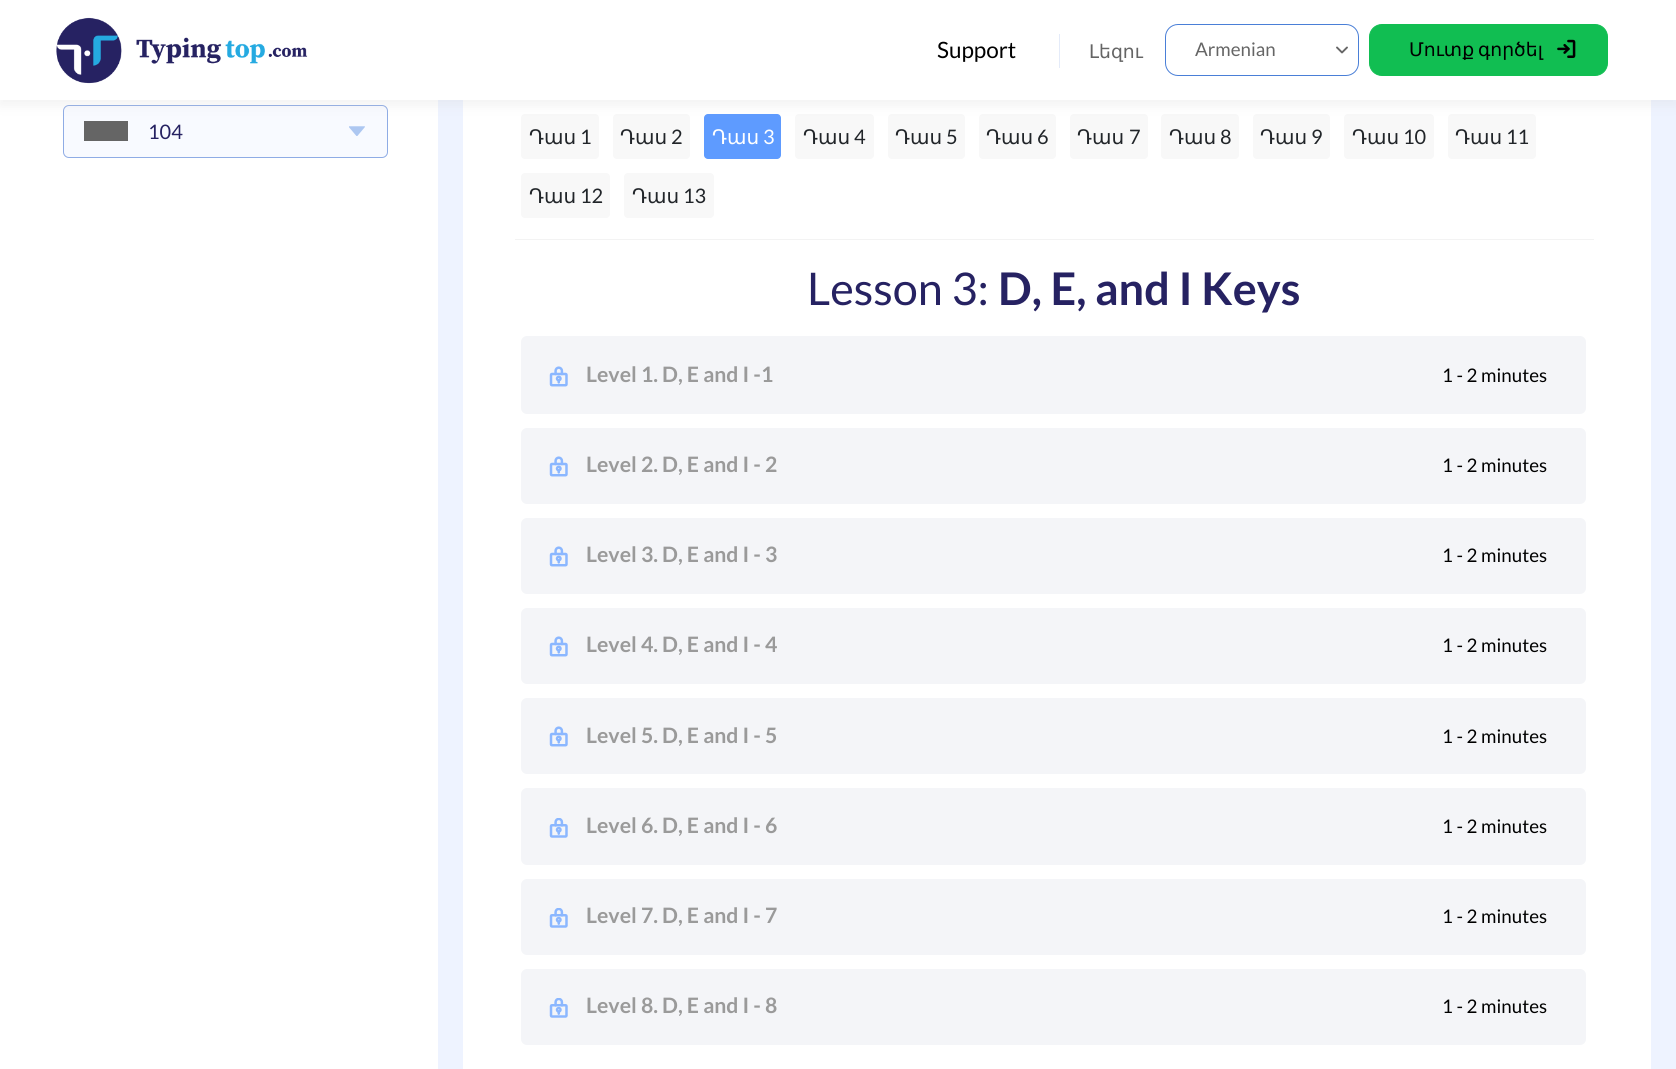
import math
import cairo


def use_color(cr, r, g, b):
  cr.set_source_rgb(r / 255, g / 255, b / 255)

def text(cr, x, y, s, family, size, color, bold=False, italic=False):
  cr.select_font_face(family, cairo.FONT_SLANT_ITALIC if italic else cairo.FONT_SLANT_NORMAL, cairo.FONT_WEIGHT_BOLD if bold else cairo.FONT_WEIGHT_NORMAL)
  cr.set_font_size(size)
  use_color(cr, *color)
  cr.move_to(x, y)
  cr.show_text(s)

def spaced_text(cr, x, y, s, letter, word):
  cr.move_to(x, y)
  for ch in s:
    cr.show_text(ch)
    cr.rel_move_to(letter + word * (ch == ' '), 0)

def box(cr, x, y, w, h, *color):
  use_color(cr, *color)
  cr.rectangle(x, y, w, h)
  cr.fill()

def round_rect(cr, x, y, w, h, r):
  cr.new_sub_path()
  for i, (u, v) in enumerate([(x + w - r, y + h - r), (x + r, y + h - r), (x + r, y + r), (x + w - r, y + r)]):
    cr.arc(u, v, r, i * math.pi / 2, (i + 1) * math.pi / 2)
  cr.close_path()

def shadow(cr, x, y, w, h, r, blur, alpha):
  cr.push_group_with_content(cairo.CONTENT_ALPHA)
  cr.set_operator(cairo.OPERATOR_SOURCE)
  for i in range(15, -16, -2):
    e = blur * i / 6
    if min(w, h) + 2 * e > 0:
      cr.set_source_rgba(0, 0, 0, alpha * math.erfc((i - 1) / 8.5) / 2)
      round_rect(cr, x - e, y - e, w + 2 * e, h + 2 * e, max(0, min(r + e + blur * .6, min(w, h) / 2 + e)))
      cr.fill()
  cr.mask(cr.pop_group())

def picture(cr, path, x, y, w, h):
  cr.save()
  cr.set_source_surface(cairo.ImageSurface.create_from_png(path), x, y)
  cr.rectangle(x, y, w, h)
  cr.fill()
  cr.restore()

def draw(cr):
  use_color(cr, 255, 255, 255)
  cr.paint()
  box(cr, 438, 100, 1238, 969, 238, 243, 255)
  use_color(cr, 248, 250, 255)
  round_rect(cr, 63, 105, 325, 53, 6)
  cr.fill()
  box(cr, 84, 121, 44, 20, 101, 101, 101)
  picture(cr, "img_03.png", 349, 126, 16, 10)
  round_rect(cr, 63.5, 105.5, 324, 52, 5.5)
  use_color(cr, 143, 172, 229)
  cr.set_line_width(1)
  cr.stroke()
  box(cr, 463, 100, 1188, 969, 255, 255, 255)
  use_color(cr, 248, 248, 248)
  round_rect(cr, 521, 114, 78, 45, 4)
  cr.fill()
  round_rect(cr, 613, 114, 77, 45, 4)
  cr.fill()
  use_color(cr, 94, 155, 255)
  round_rect(cr, 704, 114, 77, 45, 4)
  cr.fill()
  use_color(cr, 248, 248, 248)
  round_rect(cr, 795, 114, 79, 45, 4)
  cr.fill()
  round_rect(cr, 888, 114, 77, 45, 4)
  cr.fill()
  round_rect(cr, 979, 114, 77, 45, 4)
  cr.fill()
  round_rect(cr, 1070, 114, 78, 45, 4)
  cr.fill()
  round_rect(cr, 1161, 114, 78, 45, 4)
  cr.fill()
  round_rect(cr, 1253, 114, 77, 45, 4)
  cr.fill()
  round_rect(cr, 1344, 114, 90, 45, 4)
  cr.fill()
  round_rect(cr, 1448, 114, 88, 45, 4)
  cr.fill()
  use_color(cr, 202, 202, 202)
  shadow(cr, 0, 5, 1676, 100, 0, 6, 0.25)
  box(cr, 0, 0, 1676, 100, 255, 255, 255)
  picture(cr, "img_01.png", 56, 17, 252, 67)
  box(cr, 1059, 34, 1, 34, 228, 235, 249)
  cr.new_path()
  cr.move_to(1347, 47.5)
  cr.line_to(1342, 52.5)
  cr.line_to(1337, 47.5)
  use_color(cr, 101, 101, 101)
  cr.set_line_width(1.9)
  cr.set_line_cap(cairo.LINE_CAP_ROUND)
  cr.set_line_join(cairo.LINE_JOIN_ROUND)
  cr.stroke()
  round_rect(cr, 1165.5, 24.5, 193, 51, 12.5)
  use_color(cr, 74, 127, 215)
  cr.set_line_width(1)
  cr.set_line_cap(cairo.LINE_CAP_BUTT)
  cr.set_line_join(cairo.LINE_JOIN_MITER)
  cr.stroke()
  use_color(cr, 17, 190, 82)
  round_rect(cr, 1369.5, 24.5, 238, 51, 12.5)
  cr.fill_preserve()
  cr.stroke()
  picture(cr, "img_02.png", 1557, 39, 19, 19)
  box(cr, 515, 239, 1079, 1, 243, 243, 243)
  use_color(cr, 248, 248, 248)
  round_rect(cr, 521, 173, 89, 45, 4)
  cr.fill()
  round_rect(cr, 624, 173, 90, 45, 4)
  cr.fill()
  use_color(cr, 244, 245, 248)
  round_rect(cr, 522.5, 337.5, 1062, 75, 4.5)
  cr.fill_preserve()
  cr.set_line_width(3)
  cr.stroke()
  picture(cr, "img_04.png", 549, 366, 19, 21)
  round_rect(cr, 522.5, 429.5, 1062, 73, 4.5)
  cr.fill_preserve()
  cr.stroke()
  picture(cr, "img_04.png", 549, 456, 19, 21)
  round_rect(cr, 522.5, 519.5, 1062, 73, 4.5)
  cr.fill_preserve()
  cr.stroke()
  picture(cr, "img_04.png", 549, 546, 19, 21)
  round_rect(cr, 522.5, 609.5, 1062, 73, 4.5)
  cr.fill_preserve()
  cr.stroke()
  picture(cr, "img_04.png", 549, 636, 19, 21)
  round_rect(cr, 522.5, 699.5, 1062, 73, 4.5)
  cr.fill_preserve()
  cr.stroke()
  picture(cr, "img_04.png", 549, 726, 19, 21)
  round_rect(cr, 522.5, 789.5, 1062, 74, 4.5)
  cr.fill_preserve()
  cr.stroke()
  picture(cr, "img_05.png", 549, 818, 19, 20)
  round_rect(cr, 522.5, 880.5, 1062, 73, 4.5)
  cr.fill_preserve()
  cr.stroke()
  picture(cr, "img_05.png", 549, 908, 19, 20)
  round_rect(cr, 522.5, 970.5, 1062, 73, 4.5)
  cr.fill_preserve()
  cr.stroke()
  picture(cr, "img_05.png", 549, 998, 19, 20)
  text(cr, 937, 58, "Support", "Lato", 22.5, (0, 0, 0))
  text(cr, 1089, 58, "Լեզու", "DejaVu Sans", 18.75, (101, 101, 101))
  text(cr, 1195, 56, "Armenian", "Lato", 18.75, (101, 101, 101))
  cr.select_font_face("DejaVu Sans")
  use_color(cr, 0, 0, 0)
  spaced_text(cr, 1409, 56, "Մուտք գործել", 0, -2)
  text(cr, 148, 139, "104", "Lato", 20, (38, 34, 98))
  text(cr, 529, 144, "Դաս", "DejaVu Sans", 20, (33, 37, 41))
  text(cr, 580, 144, "1", "Lato", 20, (33, 37, 41))
  text(cr, 620, 144, "Դաս", "DejaVu Sans", 20, (33, 37, 41))
  text(cr, 671, 144, "2", "Lato", 20, (33, 37, 41))
  text(cr, 712, 144, "Դաս", "DejaVu Sans", 20, (255, 255, 255))
  text(cr, 763, 144, "3", "Lato", 20, (255, 255, 255))
  text(cr, 803, 144, "Դաս", "DejaVu Sans", 20, (33, 37, 41))
  text(cr, 854, 144, "4", "Lato", 20, (33, 37, 41))
  text(cr, 895, 144, "Դաս", "DejaVu Sans", 20, (33, 37, 41))
  text(cr, 946, 144, "5", "Lato", 20, (33, 37, 41))
  text(cr, 986, 144, "Դաս", "DejaVu Sans", 20, (33, 37, 41))
  text(cr, 1037, 144, "6", "Lato", 20, (33, 37, 41))
  text(cr, 1077, 144, "Դաս", "DejaVu Sans", 20, (33, 37, 41))
  text(cr, 1129, 144, "7", "Lato", 20, (33, 37, 41))
  text(cr, 1169, 144, "Դաս", "DejaVu Sans", 20, (33, 37, 41))
  text(cr, 1220, 144, "8", "Lato", 20, (33, 37, 41))
  text(cr, 1260, 144, "Դաս", "DejaVu Sans", 20, (33, 37, 41))
  text(cr, 1311, 144, "9", "Lato", 20, (33, 37, 41))
  text(cr, 1352, 144, "Դաս", "DejaVu Sans", 20, (33, 37, 41))
  text(cr, 1403, 144, "10", "Lato", 20, (33, 37, 41))
  text(cr, 1455, 144, "Դաս", "DejaVu Sans", 20, (33, 37, 41))
  text(cr, 1506, 144, "11", "Lato", 20, (33, 37, 41))
  text(cr, 529, 203, "Դաս", "DejaVu Sans", 20, (33, 37, 41))
  text(cr, 580, 203, "12", "Lato", 20, (33, 37, 41))
  text(cr, 632, 203, "Դաս", "DejaVu Sans", 20, (33, 37, 41))
  text(cr, 683, 203, "13", "Lato", 20, (33, 37, 41))
  text(cr, 807, 305, "Lesson 3:", "Lato", 45, (38, 34, 98))
  text(cr, 998, 305, "D, E, and I Keys", "Lato", 45, (38, 34, 98), bold=True)
  text(cr, 586, 382, "Level 1. D, E and I -1", "Lato", 21.25, (154, 154, 154), bold=True)
  text(cr, 1442, 382, "1 - 2 minutes", "Lato", 18.75, (0, 0, 0))
  text(cr, 586, 472, "Level 2. D, E and I - 2", "Lato", 21.25, (154, 154, 154), bold=True)
  text(cr, 1442, 472, "1 - 2 minutes", "Lato", 18.75, (0, 0, 0))
  text(cr, 586, 562, "Level 3. D, E and I - 3", "Lato", 21.25, (154, 154, 154), bold=True)
  text(cr, 1442, 562, "1 - 2 minutes", "Lato", 18.75, (0, 0, 0))
  text(cr, 586, 652, "Level 4. D, E and I - 4", "Lato", 21.25, (154, 154, 154), bold=True)
  text(cr, 1442, 652, "1 - 2 minutes", "Lato", 18.75, (0, 0, 0))
  text(cr, 586, 743, "Level 5. D, E and I - 5", "Lato", 21.25, (154, 154, 154), bold=True)
  text(cr, 1442, 743, "1 - 2 minutes", "Lato", 18.75, (0, 0, 0))
  text(cr, 586, 833, "Level 6. D, E and I - 6", "Lato", 21.25, (154, 154, 154), bold=True)
  text(cr, 1442, 833, "1 - 2 minutes", "Lato", 18.75, (0, 0, 0))
  text(cr, 586, 923, "Level 7. D, E and I - 7", "Lato", 21.25, (154, 154, 154), bold=True)
  text(cr, 1442, 923, "1 - 2 minutes", "Lato", 18.75, (0, 0, 0))
  text(cr, 586, 1013, "Level 8. D, E and I - 8", "Lato", 21.25, (154, 154, 154), bold=True)
  text(cr, 1442, 1013, "1 - 2 minutes", "Lato", 18.75, (0, 0, 0))


surface = cairo.ImageSurface(cairo.FORMAT_RGB24, 1676, 1069)
cr = cairo.Context(surface)
options = cairo.FontOptions()
options.set_hint_metrics(cairo.HINT_METRICS_OFF)
options.set_hint_style(cairo.HINT_STYLE_NONE)
cr.set_font_options(options)
cr.set_miter_limit(4)
draw(cr)
surface.write_to_png("out.png")
